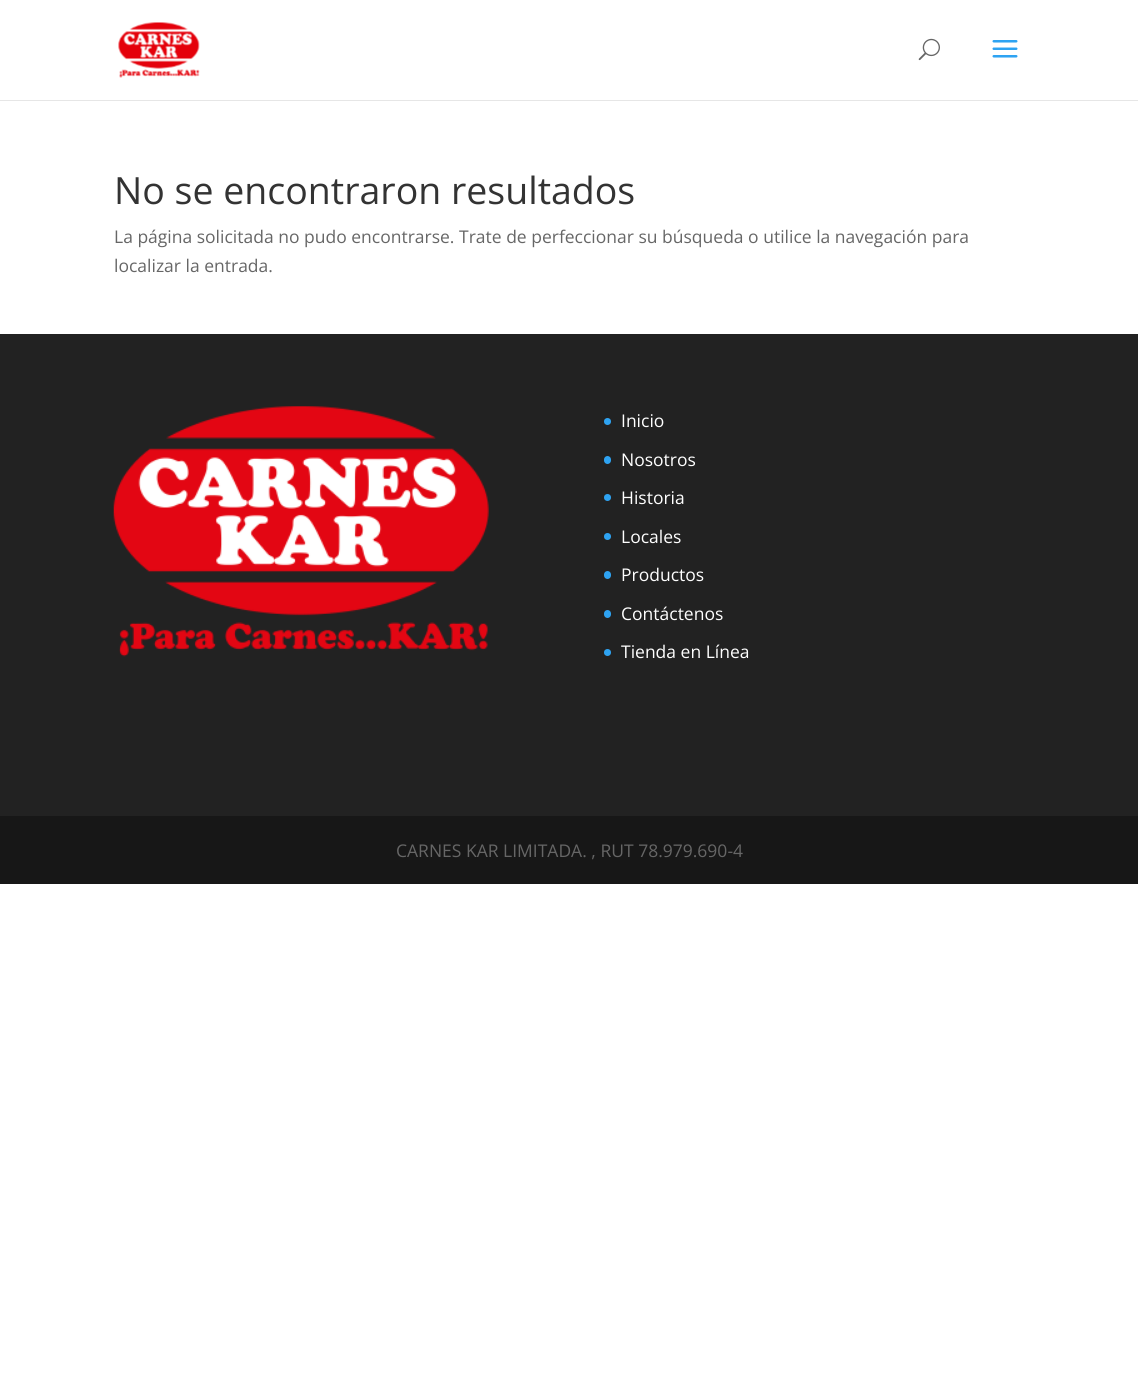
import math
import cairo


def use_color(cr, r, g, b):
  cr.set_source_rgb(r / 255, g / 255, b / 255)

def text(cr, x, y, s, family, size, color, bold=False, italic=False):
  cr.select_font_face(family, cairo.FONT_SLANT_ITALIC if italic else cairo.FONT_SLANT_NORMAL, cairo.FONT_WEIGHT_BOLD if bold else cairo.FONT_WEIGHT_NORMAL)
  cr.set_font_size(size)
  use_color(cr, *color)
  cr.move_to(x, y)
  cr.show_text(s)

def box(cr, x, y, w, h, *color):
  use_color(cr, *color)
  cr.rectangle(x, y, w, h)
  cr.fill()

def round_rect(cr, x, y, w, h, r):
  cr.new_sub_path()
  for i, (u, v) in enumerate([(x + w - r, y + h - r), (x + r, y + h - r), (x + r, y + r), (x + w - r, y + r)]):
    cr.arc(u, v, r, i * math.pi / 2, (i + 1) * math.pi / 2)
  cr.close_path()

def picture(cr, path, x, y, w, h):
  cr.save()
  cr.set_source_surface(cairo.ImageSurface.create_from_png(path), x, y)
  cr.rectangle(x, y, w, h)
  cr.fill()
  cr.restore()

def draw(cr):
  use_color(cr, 255, 255, 255)
  cr.paint()
  use_color(cr, 230, 230, 230)
  cr.new_path()
  cr.move_to(0, 100)
  cr.line_to(0, 101)
  cr.line_to(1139, 101)
  cr.line_to(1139, 1)
  cr.line_to(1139, 100)
  cr.close_path()
  cr.fill()
  picture(cr, "img_01.png", 118, 22, 82, 56)
  picture(cr, "img_02.png", 918, 38, 22, 23)
  picture(cr, "img_03.png", 992, 40, 26, 18)
  box(cr, 0, 334, 1138, 482, 34, 34, 34)
  picture(cr, "img_04.png", 113, 406, 376, 251)
  use_color(cr, 46, 163, 242)
  cr.arc(607.5, 421.5, 3.5, 0, 2 * math.pi)
  cr.fill()
  round_rect(cr, 604, 456, 7, 8, 3.5)
  cr.fill()
  cr.arc(607.5, 497.5, 3.5, 0, 2 * math.pi)
  cr.fill()
  cr.arc(607.5, 536.5, 3.5, 0, 2 * math.pi)
  cr.fill()
  round_rect(cr, 604, 571, 7, 8, 3.5)
  cr.fill()
  round_rect(cr, 604, 610, 7, 8, 3.5)
  cr.fill()
  cr.arc(607.5, 652.5, 3.5, 0, 2 * math.pi)
  cr.fill()
  box(cr, 0, 816, 1138, 68, 23, 23, 23)
  text(cr, 114, 204, "No se encontraron resultados", "Open Sans", 37.5, (51, 51, 51))
  text(cr, 114, 243, "La página solicitada no pudo encontrarse. Trate de perfeccionar su búsqueda o utilice la navegación para", "Open Sans", 17.5, (102, 102, 102))
  text(cr, 114, 272, "localizar la entrada.", "Open Sans", 17.5, (102, 102, 102))
  text(cr, 621, 427, "Inicio", "Open Sans", 17.5, (255, 255, 255))
  text(cr, 621, 466, "Nosotros", "Open Sans", 17.5, (255, 255, 255))
  text(cr, 621, 504, "Historia", "Open Sans", 17.5, (255, 255, 255))
  text(cr, 621, 543, "Locales", "Open Sans", 17.5, (255, 255, 255))
  text(cr, 621, 581, "Productos", "Open Sans", 17.5, (255, 255, 255))
  text(cr, 621, 620, "Contáctenos", "Open Sans", 17.5, (255, 255, 255))
  text(cr, 621, 658, "Tienda en Línea", "Open Sans", 17.5, (255, 255, 255))
  text(cr, 396, 857, "CARNES KAR LIMITADA. , RUT 78.979.690-4", "Open Sans", 17.5, (102, 102, 102))


surface = cairo.ImageSurface(cairo.FORMAT_RGB24, 1138, 1388)
cr = cairo.Context(surface)
options = cairo.FontOptions()
options.set_hint_metrics(cairo.HINT_METRICS_OFF)
options.set_hint_style(cairo.HINT_STYLE_NONE)
cr.set_font_options(options)
cr.set_miter_limit(4)
draw(cr)
surface.write_to_png("out.png")
